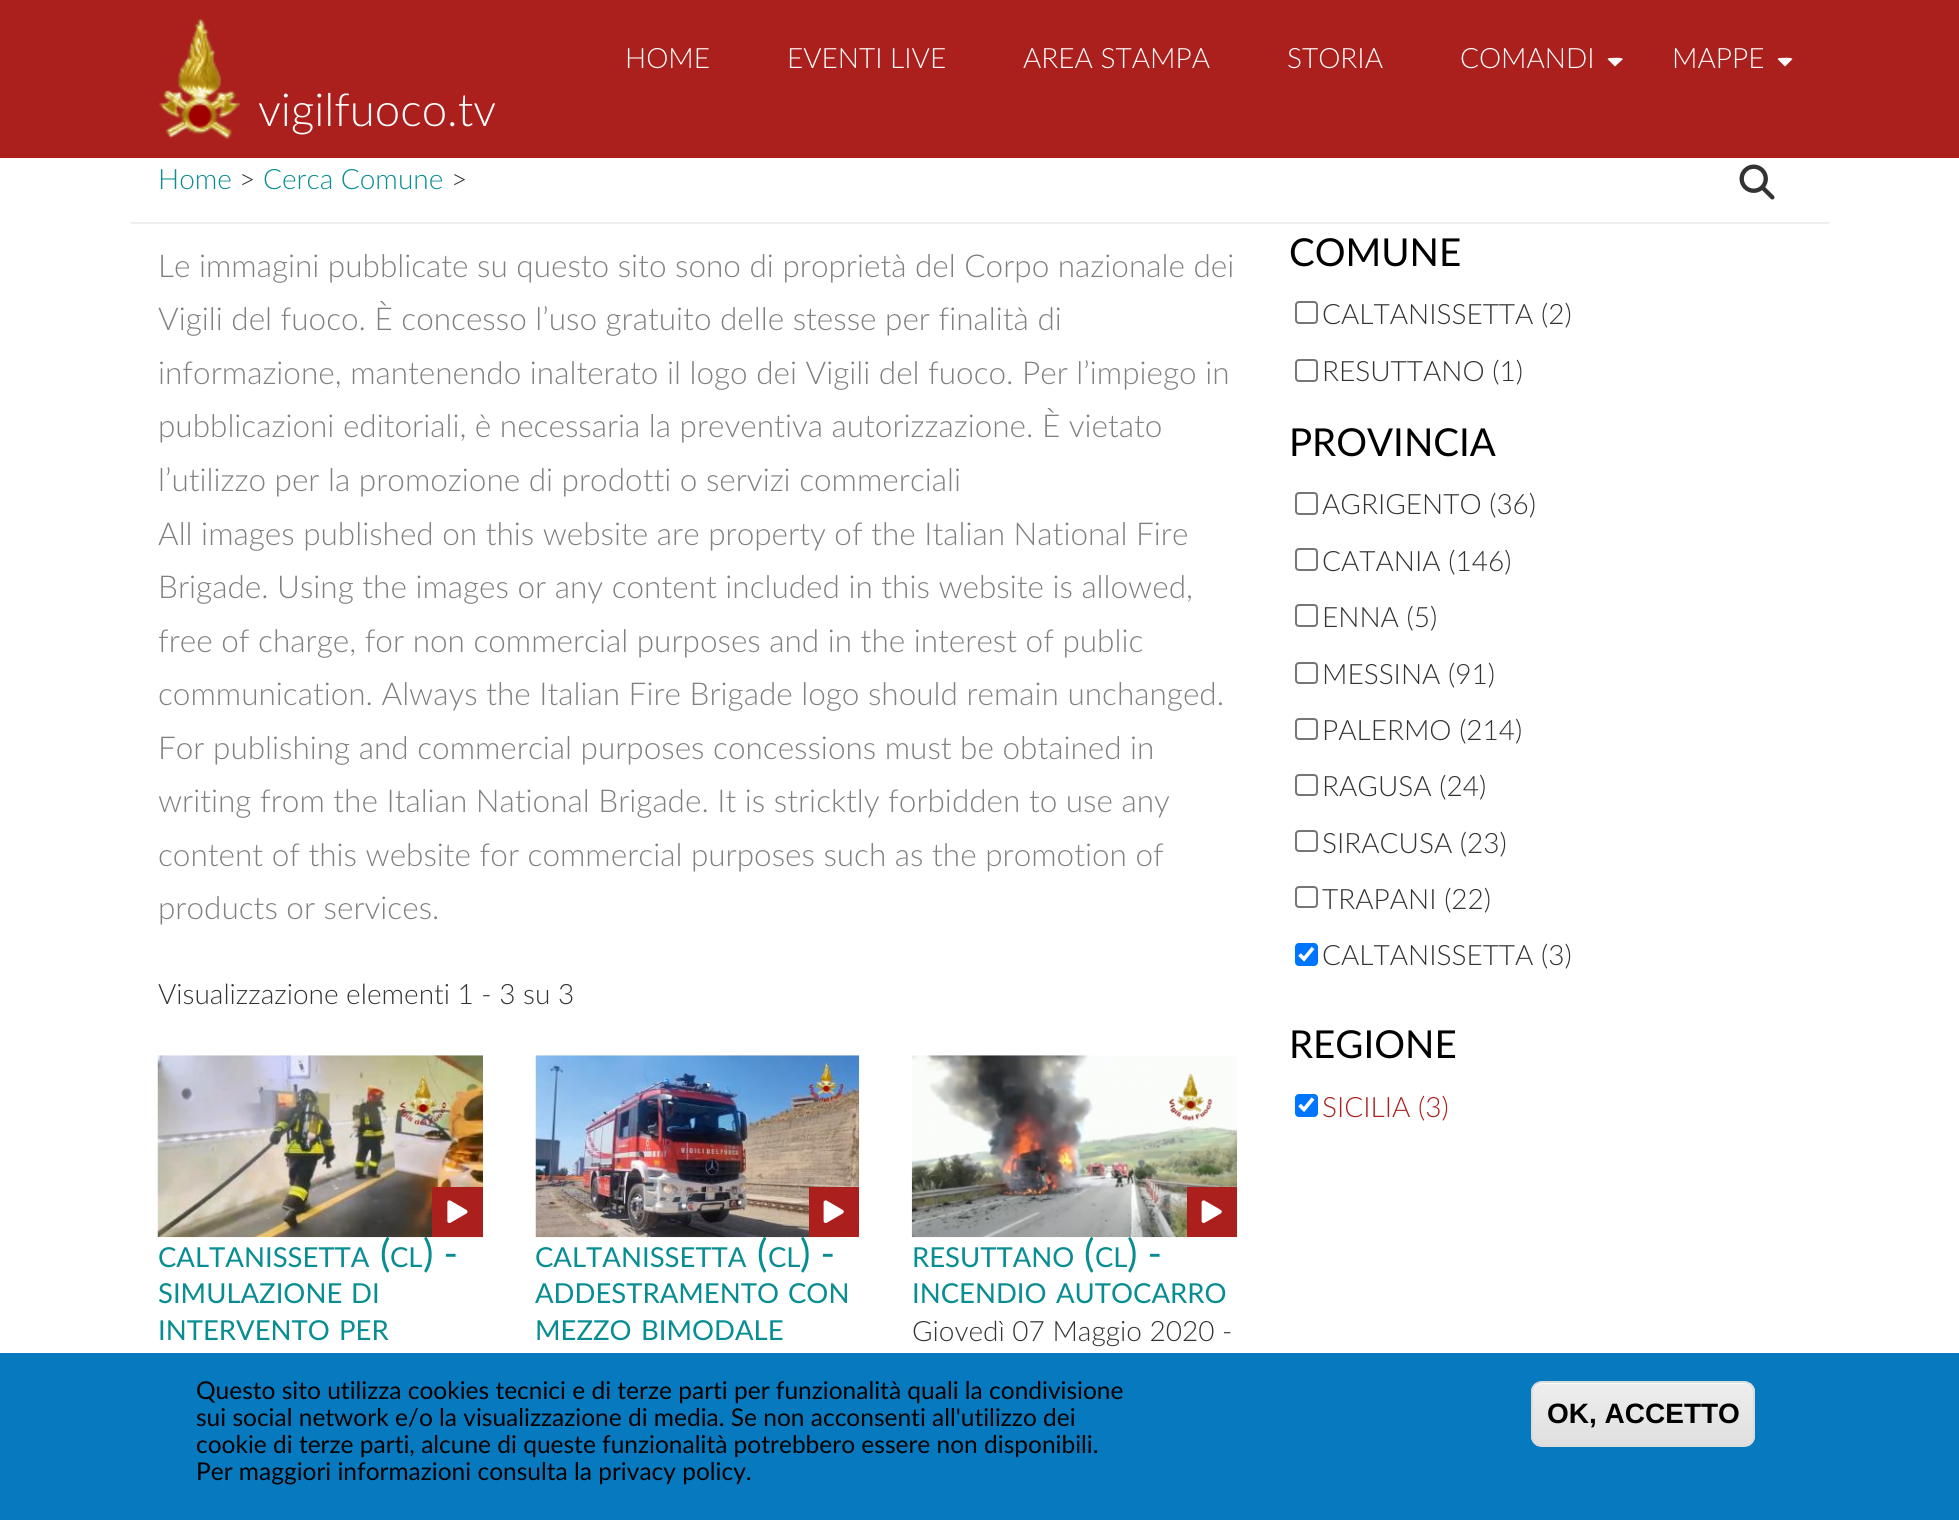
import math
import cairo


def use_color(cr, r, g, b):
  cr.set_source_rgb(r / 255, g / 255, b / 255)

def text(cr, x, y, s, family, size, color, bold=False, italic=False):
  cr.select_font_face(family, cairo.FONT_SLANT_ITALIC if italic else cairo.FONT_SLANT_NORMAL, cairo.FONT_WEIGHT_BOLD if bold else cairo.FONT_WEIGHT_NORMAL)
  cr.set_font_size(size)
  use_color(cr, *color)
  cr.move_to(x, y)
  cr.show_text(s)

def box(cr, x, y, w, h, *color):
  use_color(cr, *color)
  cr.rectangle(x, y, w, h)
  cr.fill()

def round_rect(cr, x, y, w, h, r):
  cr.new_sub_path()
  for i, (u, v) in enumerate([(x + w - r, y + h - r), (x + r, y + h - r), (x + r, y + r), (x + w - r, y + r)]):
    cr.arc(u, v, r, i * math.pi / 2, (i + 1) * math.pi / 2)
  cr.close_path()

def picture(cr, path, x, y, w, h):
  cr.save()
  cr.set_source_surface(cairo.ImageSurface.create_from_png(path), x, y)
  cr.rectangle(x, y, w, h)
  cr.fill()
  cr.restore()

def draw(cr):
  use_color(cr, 255, 255, 255)
  cr.paint()
  box(cr, 0, 0, 1959, 158, 171, 32, 29)
  use_color(cr, 255, 255, 255)
  cr.new_path()
  cr.move_to(1610, 58)
  cr.curve_to(1612.5, 58, 1621, 57, 1623, 59)
  cr.line_to(1615, 66.5)
  cr.line_to(1607.5, 59)
  cr.curve_to(1608, 58.5, 1609, 58, 1610, 58)
  cr.close_path()
  cr.fill()
  cr.new_path()
  cr.move_to(1780, 58)
  cr.curve_to(1783, 58, 1790.5, 57, 1792.5, 59)
  cr.line_to(1785, 66.5)
  cr.line_to(1777.5, 59)
  cr.curve_to(1778, 58.5, 1779, 58, 1780, 58)
  cr.close_path()
  cr.fill()
  picture(cr, "img_01.png", 159, 18, 82, 121)
  box(cr, 131, 222, 1698, 2, 238, 238, 238)
  picture(cr, "img_02.png", 1739, 164, 36, 36)
  round_rect(cr, 1296, 302, 21, 21, 3)
  use_color(cr, 118, 118, 118)
  cr.stroke()
  round_rect(cr, 1296, 360, 21, 21, 3)
  cr.stroke()
  round_rect(cr, 1296, 493, 21, 21, 3)
  cr.stroke()
  round_rect(cr, 1296, 549, 21, 21, 3)
  cr.stroke()
  round_rect(cr, 1296, 605, 21, 21, 3)
  cr.stroke()
  round_rect(cr, 1296, 663, 21, 20, 3)
  cr.stroke()
  round_rect(cr, 1296, 719, 21, 20, 3)
  cr.stroke()
  round_rect(cr, 1296, 775, 21, 20, 3)
  cr.stroke()
  round_rect(cr, 1296, 831, 21, 20, 3)
  cr.stroke()
  round_rect(cr, 1296, 887, 21, 20, 3)
  cr.stroke()
  use_color(cr, 0, 117, 255)
  round_rect(cr, 1295, 943, 23, 23, 4)
  cr.fill()
  cr.new_path()
  cr.move_to(1299.5, 954.5)
  cr.line_to(1304, 959)
  cr.line_to(1313, 948)
  use_color(cr, 255, 255, 255)
  cr.set_line_width(3.6)
  cr.stroke()
  use_color(cr, 0, 117, 255)
  round_rect(cr, 1295, 1094, 23, 23, 4)
  cr.fill()
  cr.new_path()
  cr.move_to(1299.5, 1105)
  cr.line_to(1304, 1109.5)
  cr.line_to(1313, 1098.5)
  use_color(cr, 255, 255, 255)
  cr.stroke()
  box(cr, 0, 1353, 1959, 167, 7, 121, 191)
  cr.save()
  round_rect(cr, 1531, 1381, 224, 66, 11)
  cr.clip()
  gradient = cairo.LinearGradient(1643, 1383, 1643, 1446)
  gradient.add_color_stop_rgba(0.05, 0.929, 0.929, 0.929, 1)
  gradient.add_color_stop_rgba(1, 0.875, 0.875, 0.875, 1)
  cr.set_source(gradient)
  cr.rectangle(1531, 1383, 224, 63)
  cr.fill()
  cr.restore()
  use_color(cr, 255, 255, 255)
  cr.new_path()
  cr.move_to(1542, 1384)
  cr.line_to(1745, 1384)
  cr.curve_to(1750, 1384, 1754, 1388, 1754, 1393)
  cr.line_to(1754, 1392)
  cr.curve_to(1754, 1387, 1750, 1383, 1745, 1383)
  cr.line_to(1542, 1383)
  cr.curve_to(1537, 1383, 1533, 1387, 1533, 1392)
  cr.line_to(1533, 1393)
  cr.curve_to(1533, 1388, 1537, 1384, 1542, 1384)
  cr.close_path()
  cr.fill()
  round_rect(cr, 1532, 1382, 222, 64, 10)
  use_color(cr, 220, 220, 220)
  cr.set_line_width(2)
  cr.stroke()
  text(cr, 625, 68, "HOME", "Lato Light", 28, (255, 255, 255))
  text(cr, 787, 68, "EVENTI LIVE", "Lato Light", 28, (255, 255, 255))
  text(cr, 1023, 68, "AREA STAMPA", "Lato Light", 28, (255, 255, 255))
  text(cr, 1287, 68, "STORIA", "Lato Light", 28, (255, 255, 255))
  text(cr, 1460, 68, "COMANDI", "Lato Light", 28, (255, 255, 255))
  text(cr, 1672, 68, "MAPPE", "Lato Light", 28, (255, 255, 255))
  text(cr, 258, 126, "vigilfuoco.tv", "Lato Light", 45.5, (255, 255, 255))
  text(cr, 158, 189, "Home", "Lato Light", 28, (7, 141, 146))
  text(cr, 239, 189, ">", "Lato Light", 28, (51, 51, 51))
  text(cr, 263, 189, "Cerca Comune", "Lato Light", 28, (7, 141, 146))
  text(cr, 451, 189, ">", "Lato Light", 28, (51, 51, 51))
  text(cr, 158, 277, "Le immagini pubblicate su questo sito sono di proprietà del Corpo nazionale dei", "Lato Light", 31.5, (128, 128, 128))
  text(cr, 158, 330, "Vigili del fuoco. È concesso l’uso gratuito delle stesse per finalità di", "Lato Light", 31.5, (128, 128, 128))
  text(cr, 158, 384, "informazione, mantenendo inalterato il logo dei Vigili del fuoco. Per l’impiego in", "Lato Light", 31.5, (128, 128, 128))
  text(cr, 158, 437, "pubblicazioni editoriali, è necessaria la preventiva autorizzazione. È vietato", "Lato Light", 31.5, (128, 128, 128))
  text(cr, 158, 491, "l’utilizzo per la promozione di prodotti o servizi commerciali", "Lato Light", 31.5, (128, 128, 128))
  text(cr, 158, 545, "All images published on this website are property of the Italian National Fire", "Lato Light", 31.5, (128, 128, 128))
  text(cr, 158, 598, "Brigade. Using the images or any content included in this website is allowed,", "Lato Light", 31.5, (128, 128, 128))
  text(cr, 158, 652, "free of charge, for non commercial purposes and in the interest of public", "Lato Light", 31.5, (128, 128, 128))
  text(cr, 158, 705, "communication. Always the Italian Fire Brigade logo should remain unchanged.", "Lato Light", 31.5, (128, 128, 128))
  text(cr, 158, 759, "For publishing and commercial purposes concessions must be obtained in", "Lato Light", 31.5, (128, 128, 128))
  text(cr, 158, 812, "writing from the Italian National Brigade. It is stricktly forbidden to use any", "Lato Light", 31.5, (128, 128, 128))
  text(cr, 158, 866, "content of this website for commercial purposes such as the promotion of", "Lato Light", 31.5, (128, 128, 128))
  text(cr, 158, 919, "products or services.", "Lato Light", 31.5, (128, 128, 128))
  text(cr, 158, 1004, "Visualizzazione elementi 1 - 3 su 3", "Lato Light", 28, (51, 51, 51))
  text(cr, 158, 1267, "CALTANISSETTA", "Lato", 27.5, (7, 141, 146))
  text(cr, 380, 1267, "(", "Lato", 39, (7, 141, 146))
  text(cr, 390, 1267, "CL", "Lato", 27.5, (7, 141, 146))
  text(cr, 423, 1267, ") -", "Lato", 39, (7, 141, 146))
  picture(cr, "img_03.png", 157, 1055, 326, 183)
  box(cr, 432, 1187, 51, 50, 171, 32, 29)
  picture(cr, "img_04.png", 447, 1200, 21, 23)
  text(cr, 158, 1303, "SIMULAZIONE", "Lato", 27.5, (7, 141, 146))
  text(cr, 351, 1303, "DI", "Lato", 27.5, (7, 141, 146))
  text(cr, 158, 1340, "INTERVENTO", "Lato", 27.5, (7, 141, 146))
  text(cr, 339, 1340, "PER", "Lato", 27.5, (7, 141, 146))
  text(cr, 535, 1267, "CALTANISSETTA", "Lato", 27.5, (7, 141, 146))
  text(cr, 757, 1267, "(", "Lato", 39, (7, 141, 146))
  text(cr, 768, 1267, "CL", "Lato", 27.5, (7, 141, 146))
  text(cr, 800, 1267, ") -", "Lato", 39, (7, 141, 146))
  picture(cr, "img_05.png", 535, 1055, 325, 183)
  box(cr, 809, 1187, 50, 50, 171, 32, 29)
  picture(cr, "img_06.png", 823, 1200, 21, 23)
  text(cr, 535, 1303, "ADDESTRAMENTO", "Lato", 27.5, (7, 141, 146))
  text(cr, 788, 1303, "CON", "Lato", 27.5, (7, 141, 146))
  text(cr, 535, 1340, "MEZZO", "Lato", 27.5, (7, 141, 146))
  text(cr, 641, 1340, "BIMODALE", "Lato", 27.5, (7, 141, 146))
  text(cr, 912, 1267, "RESUTTANO", "Lato", 27.5, (7, 141, 146))
  text(cr, 1084, 1267, "(", "Lato", 39, (7, 141, 146))
  text(cr, 1095, 1267, "CL", "Lato", 27.5, (7, 141, 146))
  text(cr, 1127, 1267, ") -", "Lato", 39, (7, 141, 146))
  picture(cr, "img_07.png", 911, 1055, 327, 183)
  box(cr, 1187, 1187, 50, 50, 171, 32, 29)
  picture(cr, "img_06.png", 1201, 1200, 21, 23)
  text(cr, 912, 1303, "INCENDIO", "Lato", 27.5, (7, 141, 146))
  text(cr, 1056, 1303, "AUTOCARRO", "Lato", 27.5, (7, 141, 146))
  text(cr, 912, 1341, "Giovedì 07 Maggio 2020 -", "Lato Light", 28, (51, 51, 51))
  text(cr, 1289, 266, "COMUNE", "Lato", 38.5, (0, 0, 0))
  text(cr, 1322, 324, "CALTANISSETTA (2)", "Lato Light", 28, (51, 51, 51))
  text(cr, 1322, 381, "RESUTTANO (1)", "Lato Light", 28, (51, 51, 51))
  text(cr, 1289, 456, "PROVINCIA", "Lato", 38.5, (0, 0, 0))
  text(cr, 1322, 514, "AGRIGENTO (36)", "Lato Light", 28, (51, 51, 51))
  text(cr, 1322, 571, "CATANIA (146)", "Lato Light", 28, (51, 51, 51))
  text(cr, 1322, 627, "ENNA (5)", "Lato Light", 28, (51, 51, 51))
  text(cr, 1322, 684, "MESSINA (91)", "Lato Light", 28, (51, 51, 51))
  text(cr, 1322, 740, "PALERMO (214)", "Lato Light", 28, (51, 51, 51))
  text(cr, 1322, 796, "RAGUSA (24)", "Lato Light", 28, (51, 51, 51))
  text(cr, 1322, 853, "SIRACUSA (23)", "Lato Light", 28, (51, 51, 51))
  text(cr, 1322, 909, "TRAPANI (22)", "Lato Light", 28, (51, 51, 51))
  text(cr, 1322, 965, "CALTANISSETTA (3)", "Lato Light", 28, (51, 51, 51))
  text(cr, 1289, 1058, "REGIONE", "Lato", 38.5, (0, 0, 0))
  text(cr, 1322, 1117, "SICILIA (3)", "Lato Light", 28, (171, 32, 29))
  text(cr, 196, 1399, "Questo sito utilizza cookies tecnici e di terze parti per funzionalità quali la condivisione", "Lato", 24.5, (0, 0, 0))
  text(cr, 196, 1426, "sui social network e/o la visualizzazione di media. Se non acconsenti all'utilizzo dei", "Lato", 24.5, (0, 0, 0))
  text(cr, 196, 1453, "cookie di terze parti, alcune di queste funzionalità potrebbero essere non disponibili.", "Lato", 24.5, (0, 0, 0))
  text(cr, 196, 1480, "Per maggiori informazioni consulta la privacy policy.", "Lato", 24.5, (0, 0, 0))
  text(cr, 1547, 1423, "OK, ACCETTO", "Liberation Sans", 28, (0, 0, 0), bold=True)


surface = cairo.ImageSurface(cairo.FORMAT_RGB24, 1959, 1520)
cr = cairo.Context(surface)
options = cairo.FontOptions()
options.set_hint_metrics(cairo.HINT_METRICS_OFF)
options.set_hint_style(cairo.HINT_STYLE_NONE)
cr.set_font_options(options)
cr.set_miter_limit(4)
draw(cr)
surface.write_to_png("out.png")
